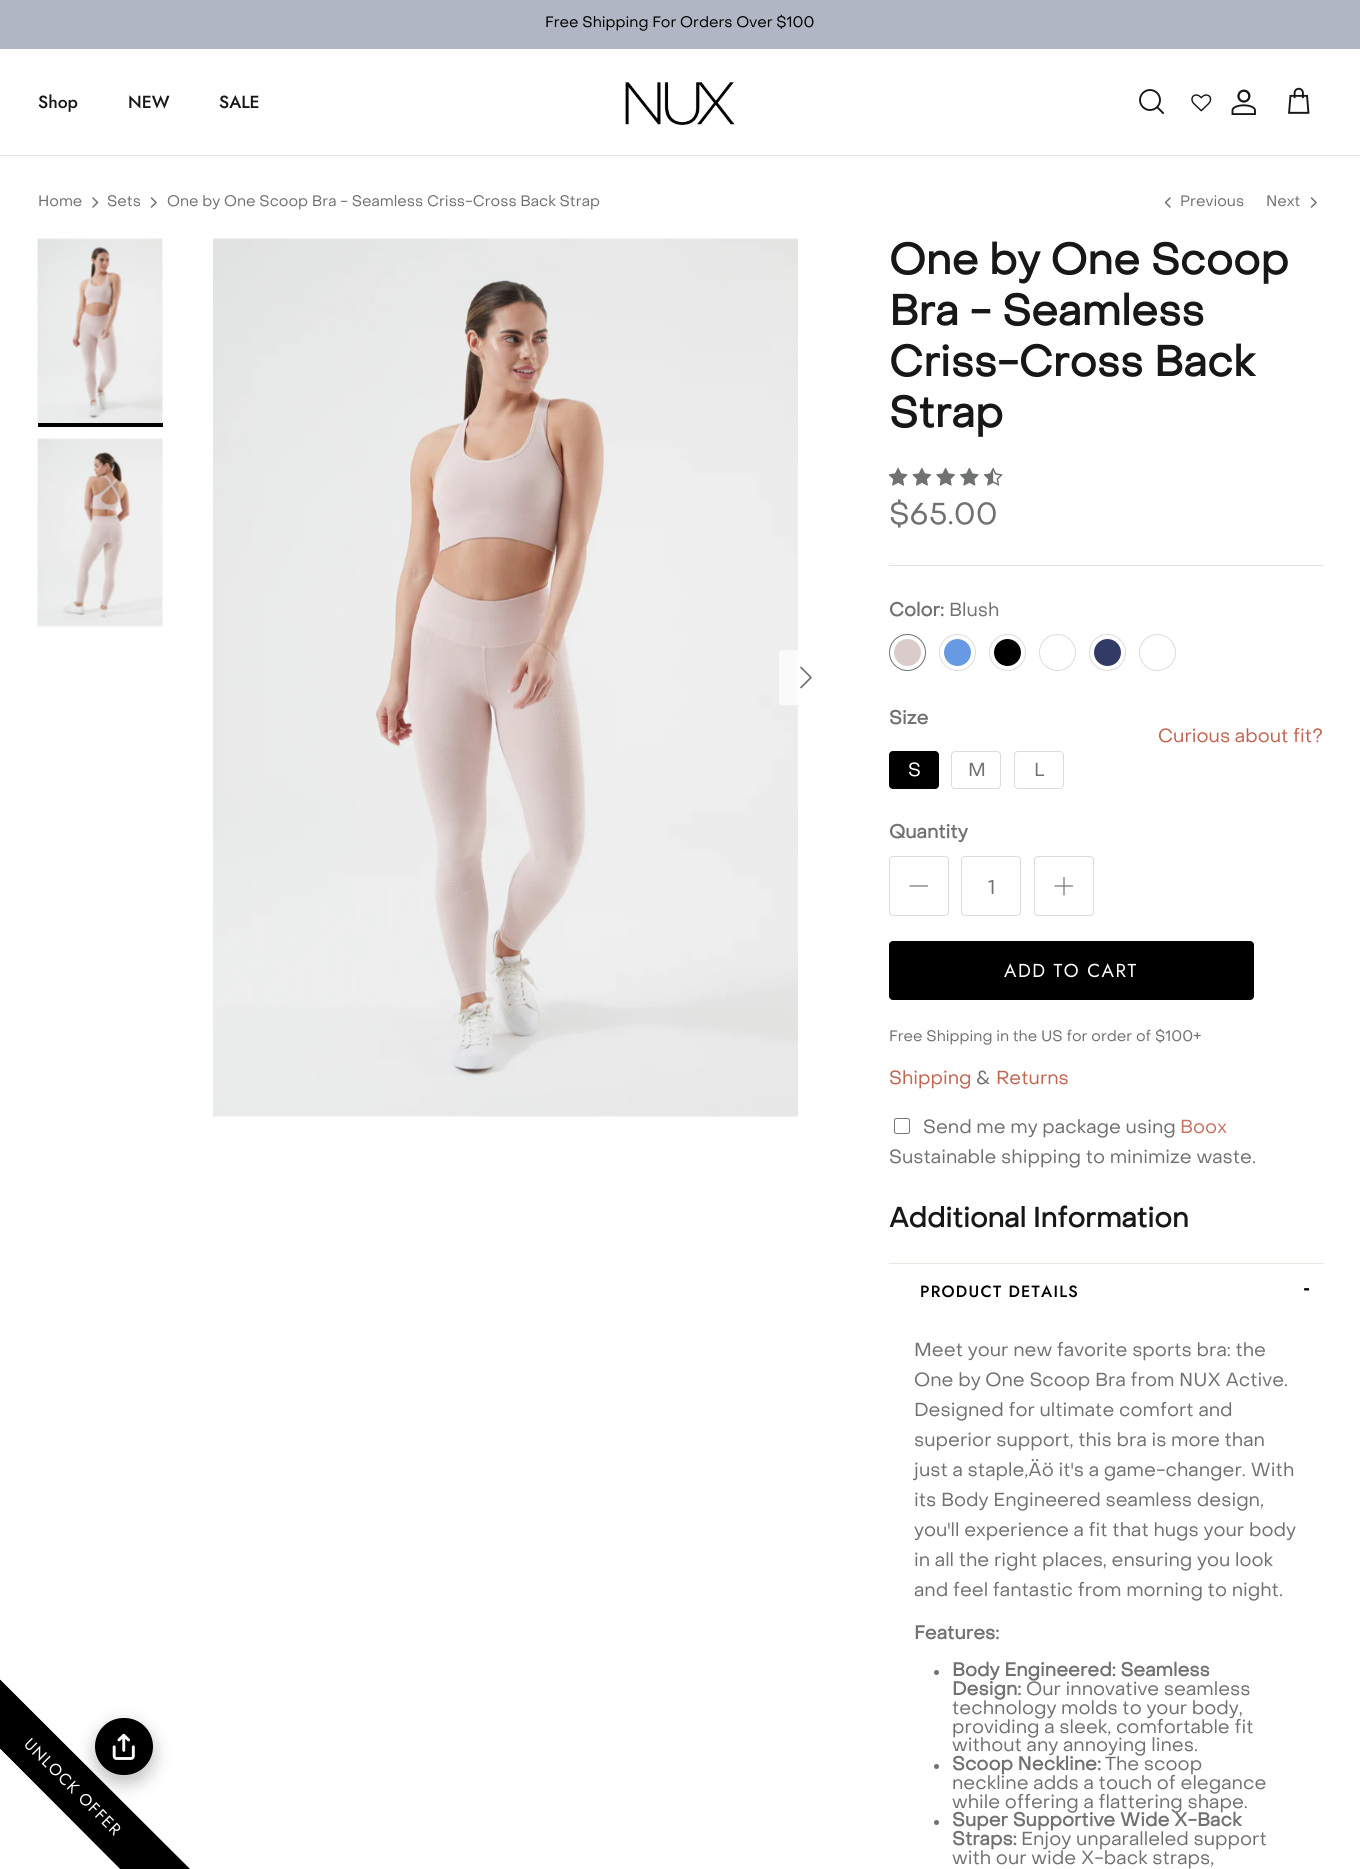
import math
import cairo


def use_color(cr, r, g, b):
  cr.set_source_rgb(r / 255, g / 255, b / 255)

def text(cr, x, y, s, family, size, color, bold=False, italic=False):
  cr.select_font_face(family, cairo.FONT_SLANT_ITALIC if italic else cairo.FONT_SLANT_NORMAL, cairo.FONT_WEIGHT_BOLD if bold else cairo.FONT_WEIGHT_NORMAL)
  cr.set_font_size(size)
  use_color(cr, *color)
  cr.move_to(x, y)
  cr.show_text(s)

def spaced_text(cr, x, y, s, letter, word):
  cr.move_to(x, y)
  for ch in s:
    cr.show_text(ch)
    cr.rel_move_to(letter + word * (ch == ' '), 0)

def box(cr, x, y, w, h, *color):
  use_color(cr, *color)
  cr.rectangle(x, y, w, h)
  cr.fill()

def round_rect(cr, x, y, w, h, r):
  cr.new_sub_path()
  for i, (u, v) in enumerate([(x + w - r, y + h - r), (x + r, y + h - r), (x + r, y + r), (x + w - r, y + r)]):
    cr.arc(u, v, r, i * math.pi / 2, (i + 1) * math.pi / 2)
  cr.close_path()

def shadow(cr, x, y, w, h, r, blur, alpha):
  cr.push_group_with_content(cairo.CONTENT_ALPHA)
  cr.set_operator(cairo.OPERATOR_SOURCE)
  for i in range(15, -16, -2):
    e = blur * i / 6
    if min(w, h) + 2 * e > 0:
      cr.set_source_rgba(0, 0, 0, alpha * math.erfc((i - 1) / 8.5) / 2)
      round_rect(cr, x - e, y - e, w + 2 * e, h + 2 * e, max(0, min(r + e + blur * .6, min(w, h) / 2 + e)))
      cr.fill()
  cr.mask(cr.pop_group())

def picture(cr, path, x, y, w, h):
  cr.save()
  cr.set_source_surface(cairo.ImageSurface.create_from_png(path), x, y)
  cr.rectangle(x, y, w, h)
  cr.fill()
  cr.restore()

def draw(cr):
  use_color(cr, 255, 255, 255)
  cr.paint()
  box(cr, 0, 0, 1360, 49, 176, 182, 195)
  box(cr, 0, 155, 1360, 1, 223, 227, 232)
  picture(cr, "img_01.png", 625, 82, 110, 43)
  cr.arc(1150, 100, 10, 0, 2 * math.pi)
  use_color(cr, 23, 23, 23)
  cr.set_line_width(1.9)
  cr.stroke()
  cr.new_path()
  cr.move_to(1157.5, 107.5)
  cr.line_to(1163, 113)
  cr.set_line_cap(cairo.LINE_CAP_SQUARE)
  cr.stroke()
  picture(cr, "img_02.png", 1191, 94, 21, 18)
  picture(cr, "img_03.png", 1231, 89, 25, 26)
  picture(cr, "img_04.png", 1288, 87, 22, 27)
  cr.new_path()
  cr.move_to(93, 207)
  cr.line_to(97.5, 202.5)
  cr.line_to(93, 198)
  use_color(cr, 112, 113, 115)
  cr.set_line_width(1.5)
  cr.set_line_cap(cairo.LINE_CAP_ROUND)
  cr.set_line_join(cairo.LINE_JOIN_ROUND)
  cr.stroke()
  cr.new_path()
  cr.move_to(151.5, 207)
  cr.line_to(156, 202.5)
  cr.line_to(151.5, 198)
  cr.stroke()
  cr.new_path()
  cr.move_to(1170, 207)
  cr.line_to(1165.5, 202.5)
  cr.line_to(1170, 198)
  cr.stroke()
  cr.new_path()
  cr.move_to(1311.5, 207)
  cr.line_to(1316, 202.5)
  cr.line_to(1311.5, 198)
  cr.stroke()
  picture(cr, "img_05.png", 37, 238, 126, 189)
  box(cr, 38, 423, 125, 4, 0, 0, 0)
  picture(cr, "img_06.png", 37, 438, 126, 189)
  picture(cr, "img_07.png", 213, 238, 585, 879)
  cr.set_source_rgba(1, 1, 1, 0.7)
  cr.new_path()
  cr.move_to(783, 650)
  cr.line_to(834, 650)
  cr.line_to(834, 705)
  cr.line_to(783, 705)
  cr.curve_to(781, 705, 779, 703, 779, 701)
  cr.line_to(779, 654)
  cr.curve_to(779, 652, 781, 650, 783, 650)
  cr.close_path()
  cr.fill()
  cr.new_path()
  cr.move_to(801, 687.5)
  cr.line_to(811, 677.5)
  cr.line_to(801, 667.5)
  use_color(cr, 112, 113, 115)
  cr.set_line_width(1.7)
  cr.stroke()
  picture(cr, "img_08.png", 888, 467, 20, 19)
  picture(cr, "img_09.png", 912, 467, 20, 19)
  picture(cr, "img_10.png", 936, 467, 19, 19)
  picture(cr, "img_11.png", 960, 467, 19, 19)
  picture(cr, "img_12.png", 983, 467, 20, 19)
  box(cr, 889, 565, 434, 1, 226, 226, 226)
  use_color(cr, 217, 204, 203)
  cr.arc(907.5, 652.5, 13.5, 0, 2 * math.pi)
  cr.fill()
  cr.arc(907.5, 652.5, 18, 0, 2 * math.pi)
  use_color(cr, 112, 113, 115)
  cr.set_line_width(1)
  cr.set_line_cap(cairo.LINE_CAP_BUTT)
  cr.set_line_join(cairo.LINE_JOIN_MITER)
  cr.stroke()
  use_color(cr, 103, 154, 226)
  cr.arc(957.5, 652.5, 13.5, 0, 2 * math.pi)
  cr.fill()
  cr.arc(957.5, 652.5, 18, 0, 2 * math.pi)
  use_color(cr, 219, 220, 220)
  cr.stroke()
  use_color(cr, 0, 0, 0)
  cr.arc(1007.5, 652.5, 13.5, 0, 2 * math.pi)
  cr.fill()
  cr.arc(1007.5, 652.5, 18, 0, 2 * math.pi)
  use_color(cr, 219, 220, 220)
  cr.stroke()
  cr.arc(1057.5, 652.5, 18, 0, 2 * math.pi)
  cr.stroke()
  use_color(cr, 50, 59, 102)
  cr.arc(1107.5, 652.5, 13.5, 0, 2 * math.pi)
  cr.fill()
  cr.arc(1107.5, 652.5, 18, 0, 2 * math.pi)
  use_color(cr, 219, 220, 220)
  cr.stroke()
  cr.arc(1157.5, 652.5, 18, 0, 2 * math.pi)
  cr.stroke()
  use_color(cr, 0, 0, 0)
  round_rect(cr, 889.5, 751.5, 49, 37, 3.5)
  cr.fill_preserve()
  cr.stroke()
  round_rect(cr, 951.5, 751.5, 49, 37, 3.5)
  use_color(cr, 219, 220, 220)
  cr.stroke()
  round_rect(cr, 1014.5, 751.5, 49, 37, 3.5)
  cr.stroke()
  round_rect(cr, 889.5, 856.5, 59, 59, 3.5)
  cr.stroke()
  cr.new_path()
  cr.move_to(910, 886)
  cr.line_to(927.5, 886)
  use_color(cr, 112, 113, 115)
  cr.set_line_width(1.2)
  cr.set_line_cap(cairo.LINE_CAP_ROUND)
  cr.set_line_join(cairo.LINE_JOIN_ROUND)
  cr.stroke()
  round_rect(cr, 961.5, 856.5, 59, 59, 3.5)
  use_color(cr, 219, 220, 220)
  cr.set_line_width(1)
  cr.set_line_cap(cairo.LINE_CAP_BUTT)
  cr.set_line_join(cairo.LINE_JOIN_MITER)
  cr.stroke()
  round_rect(cr, 1034.5, 856.5, 59, 59, 3.5)
  cr.stroke()
  cr.new_path()
  cr.move_to(1064, 877.5)
  cr.line_to(1064, 895)
  cr.move_to(1055, 886)
  cr.line_to(1072.5, 886)
  use_color(cr, 112, 113, 115)
  cr.set_line_width(1.2)
  cr.set_line_cap(cairo.LINE_CAP_ROUND)
  cr.set_line_join(cairo.LINE_JOIN_ROUND)
  cr.stroke()
  use_color(cr, 0, 0, 0)
  round_rect(cr, 889.5, 941.5, 364, 58, 3.5)
  cr.fill_preserve()
  cr.set_line_width(1)
  cr.set_line_cap(cairo.LINE_CAP_BUTT)
  cr.set_line_join(cairo.LINE_JOIN_MITER)
  cr.stroke()
  round_rect(cr, 894.5, 1118.5, 15, 15, 2)
  use_color(cr, 118, 118, 118)
  cr.stroke()
  box(cr, 889, 1263, 434, 1, 232, 232, 225)
  use_color(cr, 112, 113, 115)
  cr.arc(936.5, 1672.5, 2.5, 0, 2 * math.pi)
  cr.fill()
  cr.arc(936.5, 1766.5, 2.5, 0, 2 * math.pi)
  cr.fill()
  cr.arc(936.5, 1822.5, 2.5, 0, 2 * math.pi)
  cr.fill()
  use_color(cr, 0, 0, 0)
  shadow(cr, 95, 1725, 58, 58, 29, 9, 0.25)
  use_color(cr, 0, 0, 0)
  round_rect(cr, 95, 1718, 58, 57, 28.5)
  cr.fill()
  picture(cr, "img_13.png", 112, 1733, 23, 27)
  cr.new_path()
  cr.move_to(-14, 1666)
  cr.line_to(194, 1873)
  cr.line_to(159, 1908)
  cr.line_to(-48, 1700)
  cr.close_path()
  cr.fill()
  cr.new_path()
  cr.move_to(-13.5, 1667)
  cr.line_to(193, 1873.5)
  cr.line_to(159.5, 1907)
  cr.line_to(-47, 1700.5)
  cr.close_path()
  cr.set_line_width(1.3)
  cr.stroke()
  text(cr, 545, 27, "Free Shipping For Orders Over $100", "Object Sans", 15, (0, 0, 0))
  text(cr, 38, 108, "Shop", "Jost Medium", 17.5, (23, 23, 23))
  text(cr, 128, 108, "NEW", "Jost Medium", 17.5, (23, 23, 23))
  text(cr, 219, 108, "SALE", "Jost Medium", 17.5, (23, 23, 23))
  text(cr, 38, 206, "Home", "Object Sans", 15, (112, 113, 115))
  text(cr, 107, 206, "Sets", "Object Sans", 15, (112, 113, 115))
  text(cr, 167, 206, "One by One Scoop Bra - Seamless Criss-Cross Back Strap", "Object Sans", 15, (112, 113, 115))
  text(cr, 1180, 206, "Previous", "Object Sans", 15, (112, 113, 115))
  text(cr, 1266, 206, "Next", "Object Sans", 15, (112, 113, 115))
  text(cr, 889, 274, "One by One Scoop", "Object Sans", 42.5, (23, 23, 23), bold=True)
  text(cr, 889, 325, "Bra - Seamless", "Object Sans", 42.5, (23, 23, 23), bold=True)
  text(cr, 889, 376, "Criss-Cross Back", "Object Sans", 42.5, (23, 23, 23), bold=True)
  text(cr, 889, 427, "Strap", "Object Sans", 42.5, (23, 23, 23), bold=True)
  text(cr, 889, 524, "$65.00", "Object Sans", 30, (112, 113, 115))
  text(cr, 889, 616, "Color:", "Object Sans", 18.75, (112, 113, 115), bold=True)
  text(cr, 949, 616, "Blush", "Object Sans", 18.75, (112, 113, 115))
  text(cr, 889, 724, "Size", "Object Sans", 18.75, (112, 113, 115), bold=True)
  text(cr, 1158, 742, "Curious about fit?", "Object Sans", 18.75, (193, 100, 82))
  text(cr, 908, 776, "S", "Object Sans", 18.75, (255, 255, 255))
  text(cr, 968, 776, "M", "Object Sans", 18.75, (112, 113, 115))
  text(cr, 1034, 776, "L", "Object Sans", 18.75, (112, 113, 115))
  text(cr, 889, 838, "Quantity", "Object Sans", 18.75, (112, 113, 115), bold=True)
  text(cr, 987, 894, "1", "Jost", 20, (112, 113, 115))
  cr.set_font_size(18.75)
  use_color(cr, 255, 255, 255)
  spaced_text(cr, 1004, 977, "ADD TO CART", 1.5, 0)
  text(cr, 889, 1041, "Free Shipping in the US for order of $100+", "Object Sans", 15, (112, 113, 115))
  text(cr, 889, 1084, "Shipping", "Object Sans", 18.75, (193, 100, 82))
  text(cr, 976, 1084, "&", "Object Sans", 18.75, (112, 113, 115))
  text(cr, 996, 1084, "Returns", "Object Sans", 18.75, (193, 100, 82))
  text(cr, 923, 1133, "Send me my package using", "Object Sans", 18.75, (112, 113, 115))
  text(cr, 1180, 1133, "Boox", "Object Sans", 18.75, (199, 114, 98))
  text(cr, 889, 1163, "Sustainable shipping to minimize waste.", "Object Sans", 18.75, (112, 113, 115))
  text(cr, 889, 1227, "Additional Information", "Object Sans", 27.5, (23, 23, 23), bold=True)
  cr.select_font_face("Jost Medium")
  cr.set_font_size(16.25)
  use_color(cr, 0, 0, 0)
  spaced_text(cr, 920, 1297, "PRODUCT DETAILS", 1.25, 0)
  cr.set_font_size(24)
  spaced_text(cr, 1304, 1295, "-", 1.25, 0)
  text(cr, 914, 1356, "Meet your new favorite sports bra: the", "Object Sans", 18.75, (112, 113, 115))
  text(cr, 914, 1386, "One by One Scoop Bra from NUX Active.", "Object Sans", 18.75, (112, 113, 115))
  text(cr, 914, 1416, "Designed for ultimate comfort and", "Object Sans", 18.75, (112, 113, 115))
  text(cr, 914, 1446, "superior support, this bra is more than", "Object Sans", 18.75, (112, 113, 115))
  text(cr, 914, 1476, "just a staple‚Äö it's a game-changer. With", "Object Sans", 18.75, (112, 113, 115))
  text(cr, 914, 1506, "its Body Engineered seamless design,", "Object Sans", 18.75, (112, 113, 115))
  text(cr, 914, 1536, "you'll experience a fit that hugs your body", "Object Sans", 18.75, (112, 113, 115))
  text(cr, 914, 1566, "in all the right places, ensuring you look", "Object Sans", 18.75, (112, 113, 115))
  text(cr, 914, 1596, "and feel fantastic from morning to night.", "Object Sans", 18.75, (112, 113, 115))
  text(cr, 914, 1639, "Features:", "Object Sans", 18.75, (112, 113, 115), bold=True)
  text(cr, 952, 1676, "Body Engineered: Seamless", "Object Sans", 18.75, (112, 113, 115), bold=True)
  text(cr, 952, 1695, "Design:", "Object Sans", 18.75, (112, 113, 115), bold=True)
  text(cr, 1026, 1695, "Our innovative seamless", "Object Sans", 18.75, (112, 113, 115))
  text(cr, 952, 1714, "technology molds to your body,", "Object Sans", 18.75, (112, 113, 115))
  text(cr, 952, 1733, "providing a sleek, comfortable fit", "Object Sans", 18.75, (112, 113, 115))
  text(cr, 952, 1751, "without any annoying lines.", "Object Sans", 18.75, (112, 113, 115))
  text(cr, 952, 1770, "Scoop Neckline:", "Object Sans", 18.75, (112, 113, 115), bold=True)
  text(cr, 1105, 1770, "The scoop", "Object Sans", 18.75, (112, 113, 115))
  text(cr, 952, 1789, "neckline adds a touch of elegance", "Object Sans", 18.75, (112, 113, 115))
  text(cr, 952, 1808, "while offering a flattering shape.", "Object Sans", 18.75, (112, 113, 115))
  text(cr, 952, 1826, "Super Supportive Wide X-Back", "Object Sans", 18.75, (112, 113, 115), bold=True)
  text(cr, 952, 1845, "Straps:", "Object Sans", 18.75, (112, 113, 115), bold=True)
  text(cr, 1021, 1845, "Enjoy unparalleled support", "Object Sans", 18.75, (112, 113, 115))
  text(cr, 952, 1864, "with our wide X-back straps,", "Object Sans", 18.75, (112, 113, 115))
  cr.select_font_face("Jost")
  cr.set_font_size(16.25)
  use_color(cr, 255, 255, 255)
  cr.save()
  cr.translate(23, 1745)
  cr.rotate(45 * math.pi / 180)
  spaced_text(cr, 0, 0, "UNLOCK OFFER", 1.25, 0)
  cr.restore()


surface = cairo.ImageSurface(cairo.FORMAT_RGB24, 1360, 1869)
cr = cairo.Context(surface)
options = cairo.FontOptions()
options.set_hint_metrics(cairo.HINT_METRICS_OFF)
options.set_hint_style(cairo.HINT_STYLE_NONE)
cr.set_font_options(options)
cr.set_miter_limit(4)
draw(cr)
surface.write_to_png("out.png")
